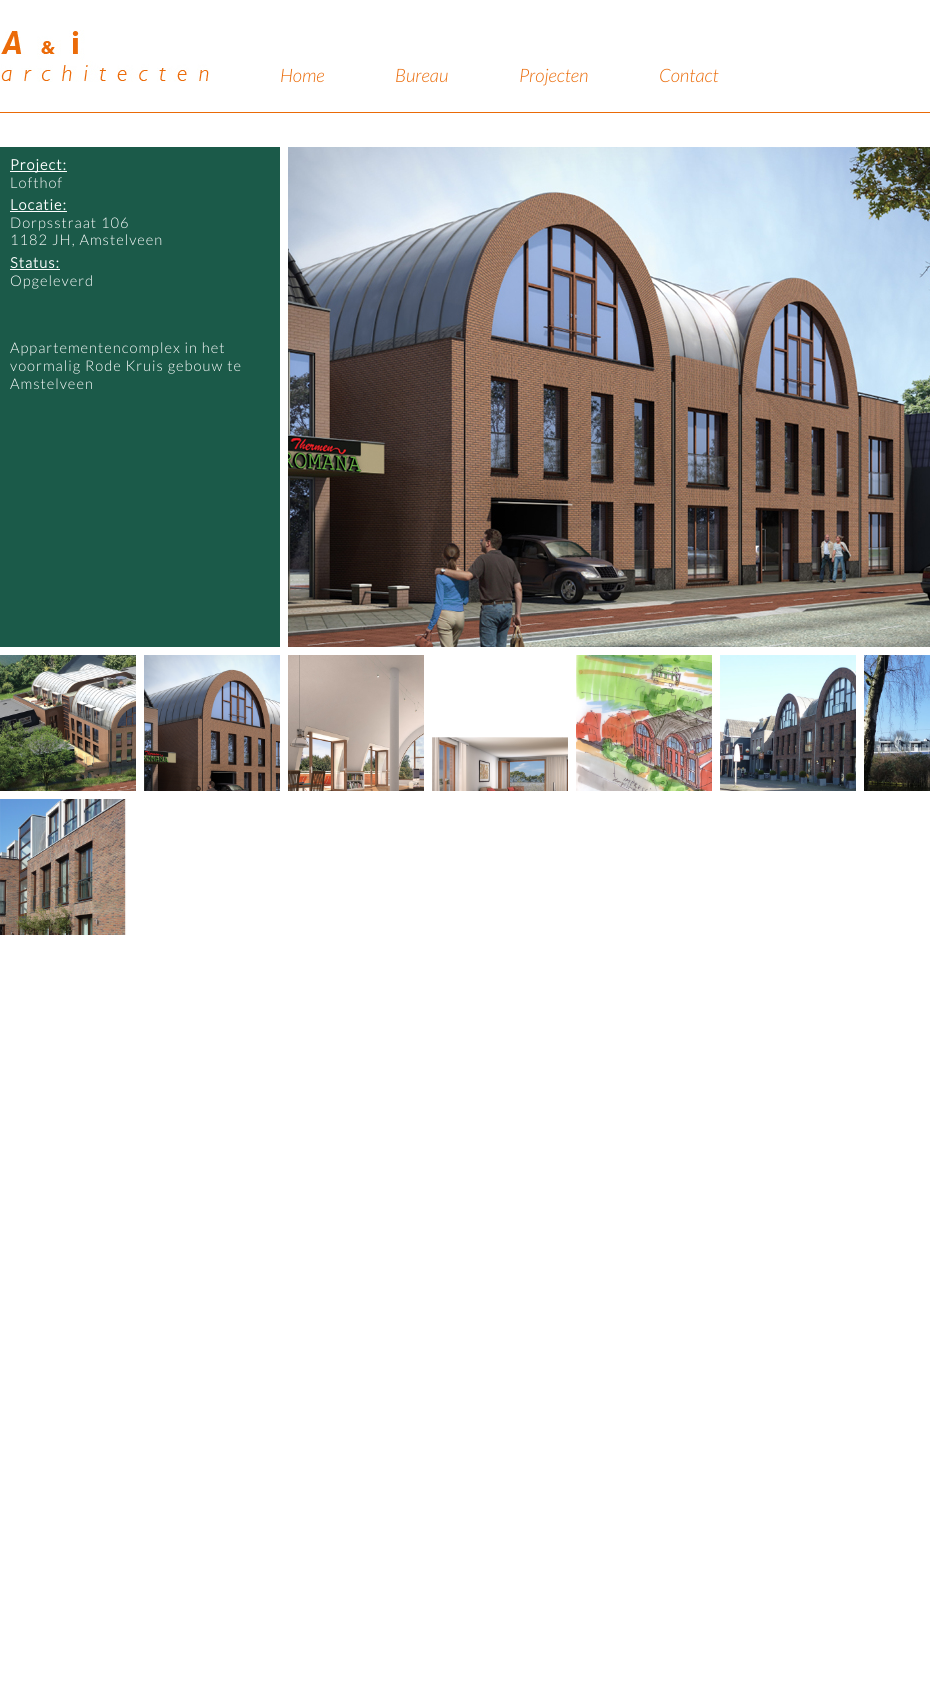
import math
import cairo


def use_color(cr, r, g, b):
  cr.set_source_rgb(r / 255, g / 255, b / 255)

def text(cr, x, y, s, family, size, color, bold=False, italic=False):
  cr.select_font_face(family, cairo.FONT_SLANT_ITALIC if italic else cairo.FONT_SLANT_NORMAL, cairo.FONT_WEIGHT_BOLD if bold else cairo.FONT_WEIGHT_NORMAL)
  cr.set_font_size(size)
  use_color(cr, *color)
  cr.move_to(x, y)
  cr.show_text(s)

def spaced_text(cr, x, y, s, letter, word):
  cr.move_to(x, y)
  for ch in s:
    cr.show_text(ch)
    cr.rel_move_to(letter + word * (ch == ' '), 0)

def box(cr, x, y, w, h, *color):
  use_color(cr, *color)
  cr.rectangle(x, y, w, h)
  cr.fill()

def picture(cr, path, x, y, w, h):
  cr.save()
  cr.set_source_surface(cairo.ImageSurface.create_from_png(path), x, y)
  cr.rectangle(x, y, w, h)
  cr.fill()
  cr.restore()

def draw(cr):
  use_color(cr, 255, 255, 255)
  cr.paint()
  box(cr, 0, 112, 930, 1, 234, 106, 7)
  picture(cr, "img_01.png", 0, 30, 210, 52)
  box(cr, 0, 147, 280, 500, 27, 90, 73)
  box(cr, 10, 171, 57, 1, 255, 255, 255)
  box(cr, 10, 211, 57, 1, 255, 255, 255)
  box(cr, 10, 269, 50, 1, 255, 255, 255)
  picture(cr, "img_02.png", 288, 147, 642, 500)
  picture(cr, "img_03.png", 0, 655, 136, 136)
  picture(cr, "img_04.png", 144, 655, 136, 136)
  picture(cr, "img_05.png", 288, 655, 136, 136)
  picture(cr, "img_06.png", 432, 655, 136, 136)
  picture(cr, "img_07.png", 576, 655, 136, 136)
  picture(cr, "img_08.png", 720, 655, 136, 136)
  picture(cr, "img_09.png", 864, 655, 66, 136)
  picture(cr, "img_10.png", 0, 799, 136, 136)
  text(cr, 280, 82, "Home", "Lato Light", 18.5, (234, 106, 7), italic=True)
  text(cr, 395, 82, "Bureau", "Lato Light", 18.5, (234, 106, 7), italic=True)
  text(cr, 519, 82, "Projecten", "Lato Light", 18.5, (234, 106, 7), italic=True)
  text(cr, 659, 82, "Contact", "Lato Light", 18.5, (234, 106, 7), italic=True)
  cr.select_font_face("Lato", cairo.FONT_SLANT_NORMAL, cairo.FONT_WEIGHT_BOLD)
  cr.set_font_size(14.7)
  use_color(cr, 255, 255, 255)
  spaced_text(cr, 10, 170, "Project:", 1, 0)
  cr.select_font_face("Lato Light")
  spaced_text(cr, 10, 188, "Lofthof", 1, 0)
  cr.select_font_face("Lato", cairo.FONT_SLANT_NORMAL, cairo.FONT_WEIGHT_BOLD)
  spaced_text(cr, 10, 210, "Locatie:", 1, 0)
  cr.select_font_face("Lato Light")
  spaced_text(cr, 10, 228, "Dorpsstraat 106", 1, 0)
  spaced_text(cr, 10, 245, "1182 JH, Amstelveen", 1, 0)
  cr.select_font_face("Lato", cairo.FONT_SLANT_NORMAL, cairo.FONT_WEIGHT_BOLD)
  spaced_text(cr, 10, 268, "Status:", 1, 0)
  cr.select_font_face("Lato Light")
  spaced_text(cr, 10, 286, "Opgeleverd", 1, 0)
  spaced_text(cr, 10, 353, "Appartementencomplex in het", 1, 0)
  spaced_text(cr, 10, 371, "voormalig Rode Kruis gebouw te", 1, 0)
  spaced_text(cr, 10, 389, "Amstelveen", 1, 0)


surface = cairo.ImageSurface(cairo.FORMAT_RGB24, 930, 1692)
cr = cairo.Context(surface)
options = cairo.FontOptions()
options.set_hint_metrics(cairo.HINT_METRICS_OFF)
options.set_hint_style(cairo.HINT_STYLE_NONE)
cr.set_font_options(options)
cr.set_miter_limit(4)
draw(cr)
surface.write_to_png("out.png")
